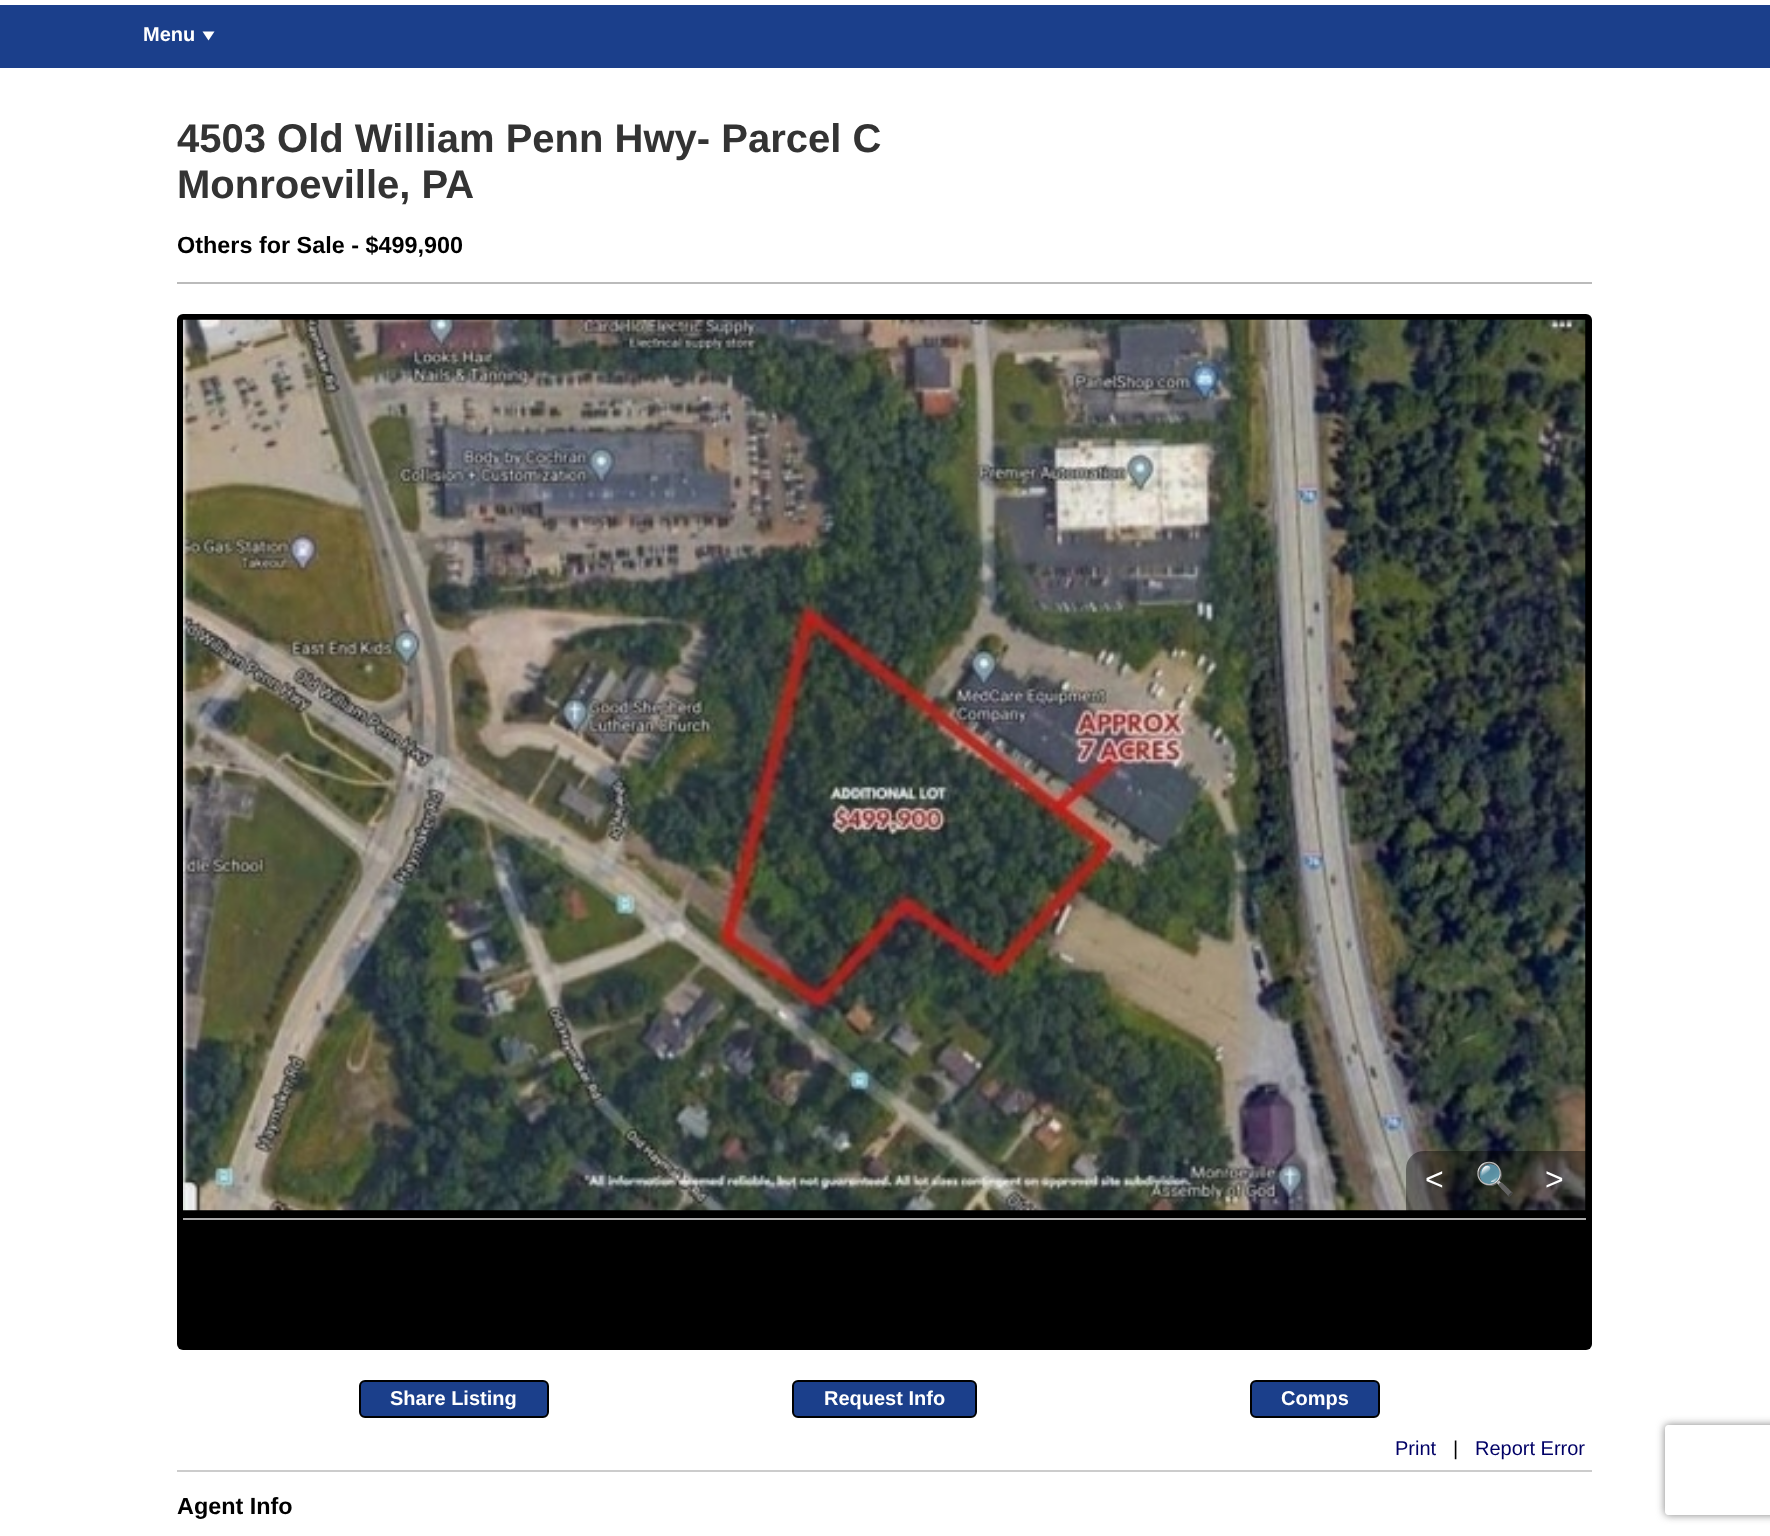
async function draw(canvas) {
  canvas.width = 1770;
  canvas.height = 1536;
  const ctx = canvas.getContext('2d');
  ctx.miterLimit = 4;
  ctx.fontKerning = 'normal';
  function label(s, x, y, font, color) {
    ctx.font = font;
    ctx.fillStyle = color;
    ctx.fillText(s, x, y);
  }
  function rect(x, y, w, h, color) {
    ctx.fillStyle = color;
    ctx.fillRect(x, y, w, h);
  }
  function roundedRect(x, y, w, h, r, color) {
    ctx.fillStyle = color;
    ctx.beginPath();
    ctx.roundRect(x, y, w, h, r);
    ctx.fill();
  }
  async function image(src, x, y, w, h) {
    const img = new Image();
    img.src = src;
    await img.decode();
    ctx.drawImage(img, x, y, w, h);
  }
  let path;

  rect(0, 0, 1770, 1536, '#fff');
  rect(0, 5, 1770, 63, '#1b3f8b');
  label('Menu', 143, 41, 'bold 20px Liberation Sans', '#fff');
  path = new Path2D('M202.5 31.5H214.5L208.5 40.5Z');
  ctx.fill(path);
  label('4503 Old William Penn Hwy- Parcel C', 177, 152, 'bold 40px Liberation Sans', '#333');
  label('Monroeville, PA', 177, 198, 'bold 40px Liberation Sans', '#333');
  label('Others for Sale - $499,900', 177, 253, 'bold 23.4px Liberation Sans', '#000');
  rect(177, 282, 1415, 2, '#bbb');
  rect(177, 1470, 1415, 2, '#ccc');
  roundedRect(177, 314, 1415, 1036, 6, '#000');
  await image('assets/img1.png', 183, 319, 1403, 892);
  ctx.fillStyle = '#00000066';
  ctx.beginPath();
  ctx.roundRect(1406, 1151, 180, 60, [18, 0, 0, 0]);
  ctx.fill();
  label('<', 1425, 1190, '32px Liberation Sans', '#fff');
  label('🔍', 1475, 1190, '32px Noto Color Emoji', '#fff');
  label('>', 1545, 1190, '32px Liberation Sans', '#fff');
  rect(183, 1218, 1403, 2, '#aaa');
  ctx.fillStyle = '#1b3f8b';
  ctx.beginPath();
  ctx.roundRect(360, 1381, 188, 36, 5);
  ctx.fill();
  ctx.strokeStyle = '#000';
  ctx.lineWidth = 2;
  ctx.stroke();
  label('Share Listing', 390, 1405, 'bold 20px Liberation Sans', '#fff');
  ctx.fillStyle = '#1b3f8b';
  ctx.beginPath();
  ctx.roundRect(793, 1381, 183, 36, 5);
  ctx.fill();
  ctx.stroke();
  label('Request Info', 824, 1405, 'bold 20px Liberation Sans', '#fff');
  ctx.fillStyle = '#1b3f8b';
  ctx.beginPath();
  ctx.roundRect(1251, 1381, 128, 36, 5);
  ctx.fill();
  ctx.stroke();
  label('Comps', 1281, 1405, 'bold 20px Liberation Sans', '#fff');
  label('Print', 1395, 1455, '20px Liberation Sans', '#006');
  label('|', 1453, 1455, '20px Liberation Sans', '#000');
  label('Report Error', 1475, 1455, '20px Liberation Sans', '#006');
  label('Agent Info', 177, 1514, 'bold 23.4px Liberation Sans', '#000');
  ctx.save();
  path = new Path2D('M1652 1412H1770V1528H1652ZM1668 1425H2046C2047.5 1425 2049 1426.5 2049 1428V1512C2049 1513.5 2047.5 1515 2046 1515H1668C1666.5 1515 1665 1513.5 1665 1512V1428C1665 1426.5 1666.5 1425 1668 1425Z');
  ctx.clip(path, 'evenodd');
  ctx.fillStyle = '#808080';
  ctx.filter = 'blur(4px)';
  ctx.beginPath();
  ctx.roundRect(1665, 1425, 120, 90, 3);
  ctx.fill();
  ctx.filter = 'none';
  ctx.restore();
}

draw(document.querySelector('canvas'));
